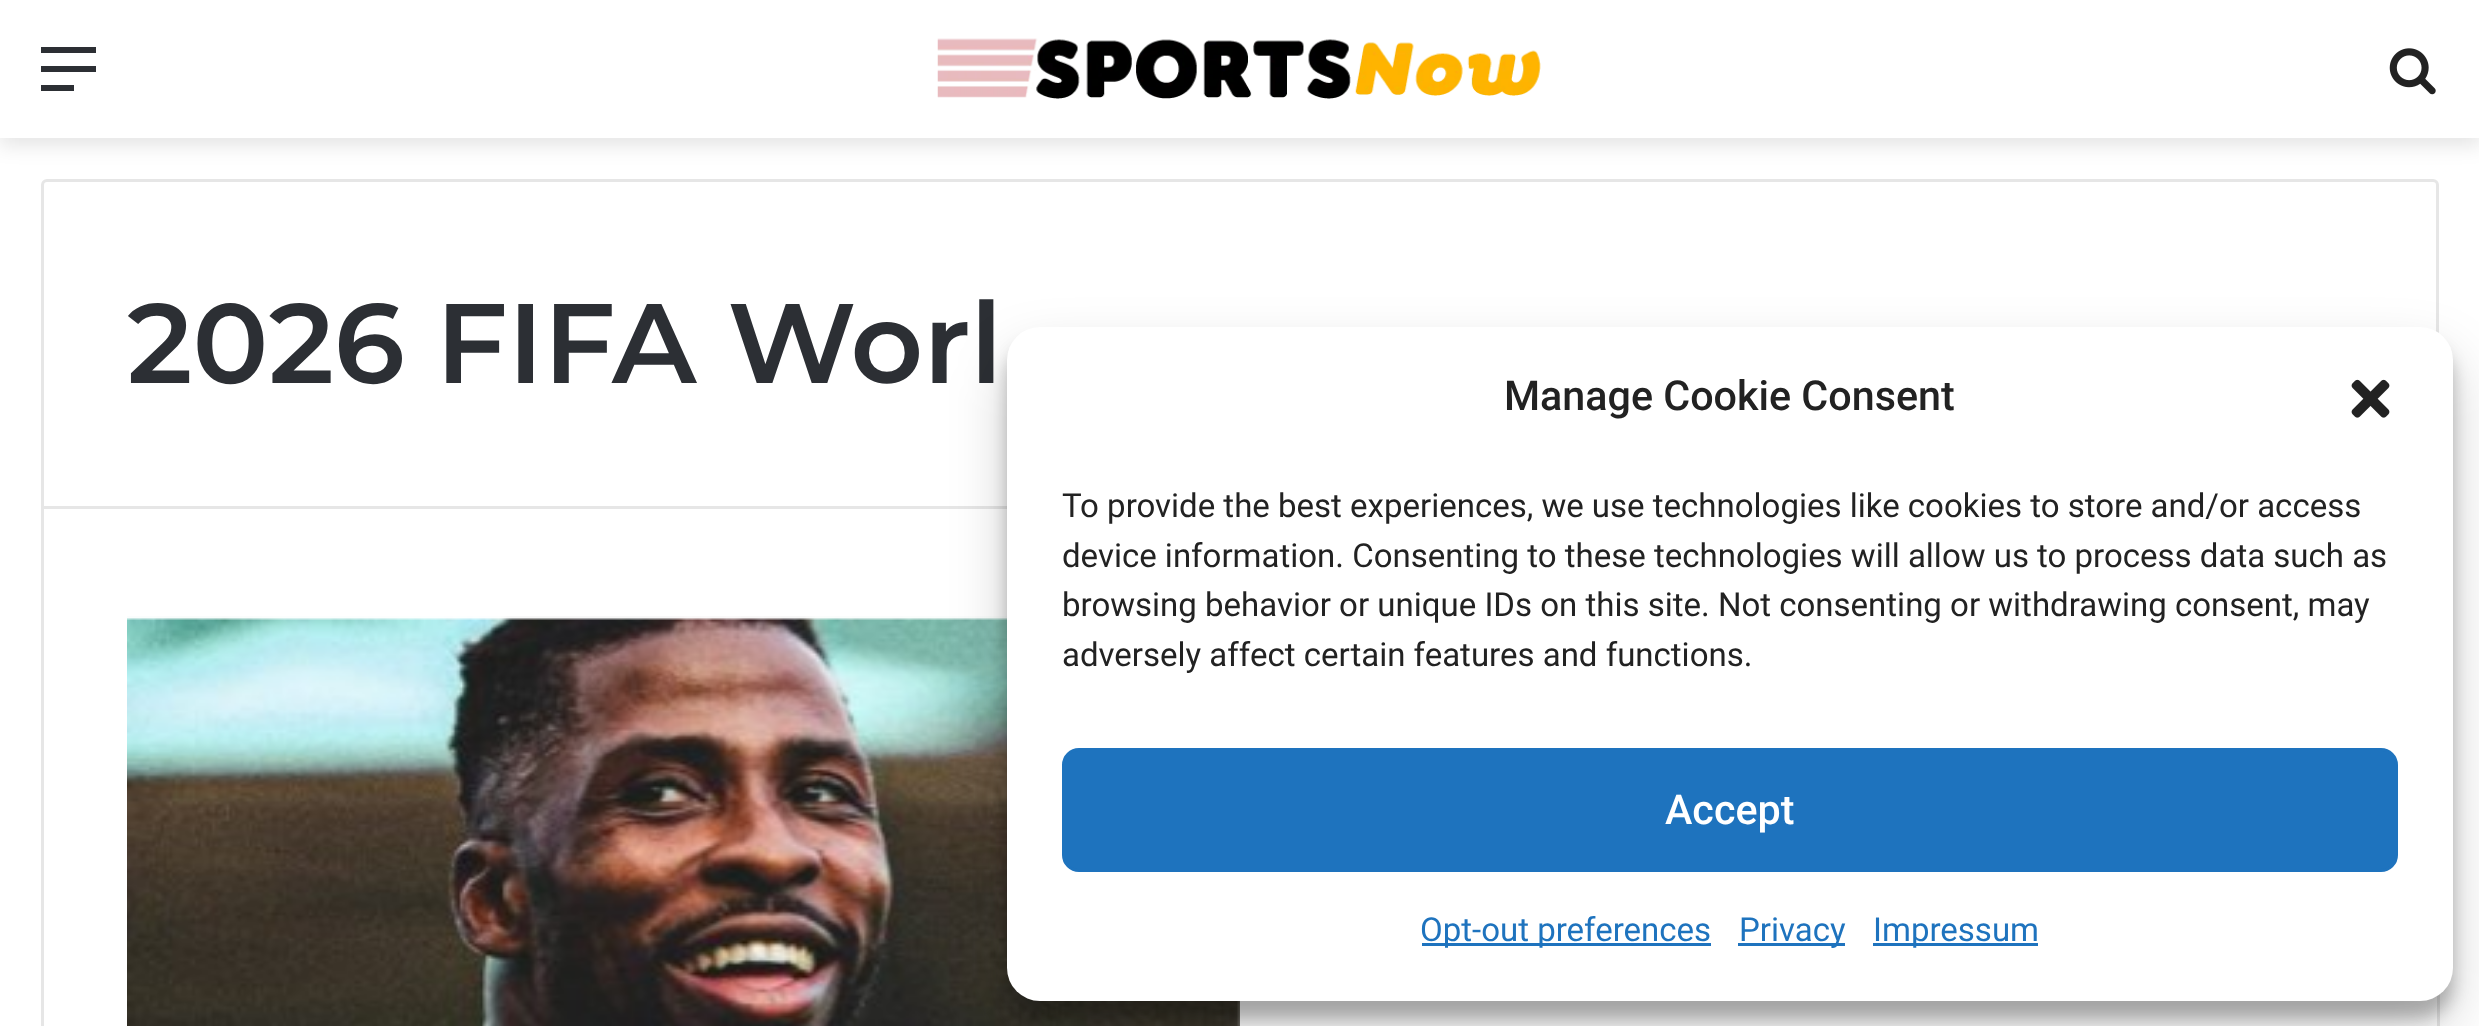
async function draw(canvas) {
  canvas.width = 2479;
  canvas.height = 1026;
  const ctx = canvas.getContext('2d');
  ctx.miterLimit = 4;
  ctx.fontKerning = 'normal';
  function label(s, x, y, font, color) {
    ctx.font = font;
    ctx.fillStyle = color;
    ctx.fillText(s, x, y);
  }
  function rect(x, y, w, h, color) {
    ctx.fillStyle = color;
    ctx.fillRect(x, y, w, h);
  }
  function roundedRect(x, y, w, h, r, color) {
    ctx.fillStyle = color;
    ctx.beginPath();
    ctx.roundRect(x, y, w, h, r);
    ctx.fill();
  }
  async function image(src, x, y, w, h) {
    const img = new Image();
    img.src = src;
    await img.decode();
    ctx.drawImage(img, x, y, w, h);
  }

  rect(0, 0, 2479, 1026, '#fff');
  ctx.fillStyle = '#0000001a';
  ctx.filter = 'blur(9.5px)';
  ctx.beginPath();
  ctx.rect(0, 8, 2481, 138);
  ctx.fill();
  ctx.filter = 'none';
  rect(0, 0, 2479, 138, '#fff');
  rect(41, 66, 55, 6, '#2c2f34');
  rect(41, 47, 55, 6, '#2c2f34');
  rect(41, 85, 33, 6, '#2c2f34');
  await image('assets/img1.png', 937, 38, 604, 61);
  await image('assets/img2.png', 2389, 48, 47, 47);
  ctx.beginPath();
  ctx.roundRect(42.5, 180.5, 2395, 327, [4.5, 4.5, 0, 0]);
  ctx.strokeStyle = '#e6e6e6';
  ctx.lineWidth = 3;
  ctx.stroke();
  label('2026 FIFA Worl', 127, 383, '600 112.75px Montserrat', '#2c2f34');
  rect(2437, 994, 3, 32, '#e6e6e6');
  rect(41, 509, 3, 517, '#e6e6e6');
  await image('assets/img3.png', 127, 616, 1113, 410);
  ctx.fillStyle = '#0000003b';
  ctx.filter = 'blur(8px)';
  ctx.beginPath();
  ctx.roundRect(1007, 344, 1446, 674, 33);
  ctx.fill();
  ctx.filter = 'none';
  ctx.fillStyle = '#00000030';
  ctx.filter = 'blur(27.5px)';
  ctx.beginPath();
  ctx.roundRect(1007, 355, 1446, 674, 33);
  ctx.fill();
  ctx.filter = 'none';
  roundedRect(1007, 327, 1446, 674, 33, '#fff');
  label('Manage Cookie Consent', 1504, 410, '500 41.25px Roboto', '#222');
  await image('assets/img4.png', 2351, 379, 39, 39);
  label('To provide the best experiences, we use technologies like cookies to store and/or access', 1062, 517, '33px Roboto', '#222');
  label('device information. Consenting to these technologies will allow us to process data such as', 1062, 567, '33px Roboto', '#222');
  label('browsing behavior or unique IDs on this site. Not consenting or withdrawing consent, may', 1062, 616, '33px Roboto', '#222');
  label('adversely affect certain features and functions.', 1062, 666, '33px Roboto', '#222');
  ctx.fillStyle = '#1e73be';
  ctx.beginPath();
  ctx.roundRect(1063.5, 749.5, 1333, 121, 15.5);
  ctx.fill();
  ctx.strokeStyle = '#1e73be';
  ctx.stroke();
  label('Accept', 1665, 824, '500 41.25px Roboto', '#fff');
  rect(1422, 943, 289, 3, '#1e73be');
  label('Opt-out preferences', 1420, 941, '33px Roboto', '#1e73be');
  rect(1738, 943, 107, 3, '#1e73be');
  label('Privacy', 1739, 941, '33px Roboto', '#1e73be');
  rect(1873, 943, 165, 3, '#1e73be');
  label('Impressum', 1873, 941, '33px Roboto', '#1e73be');
}

draw(document.querySelector('canvas'));
